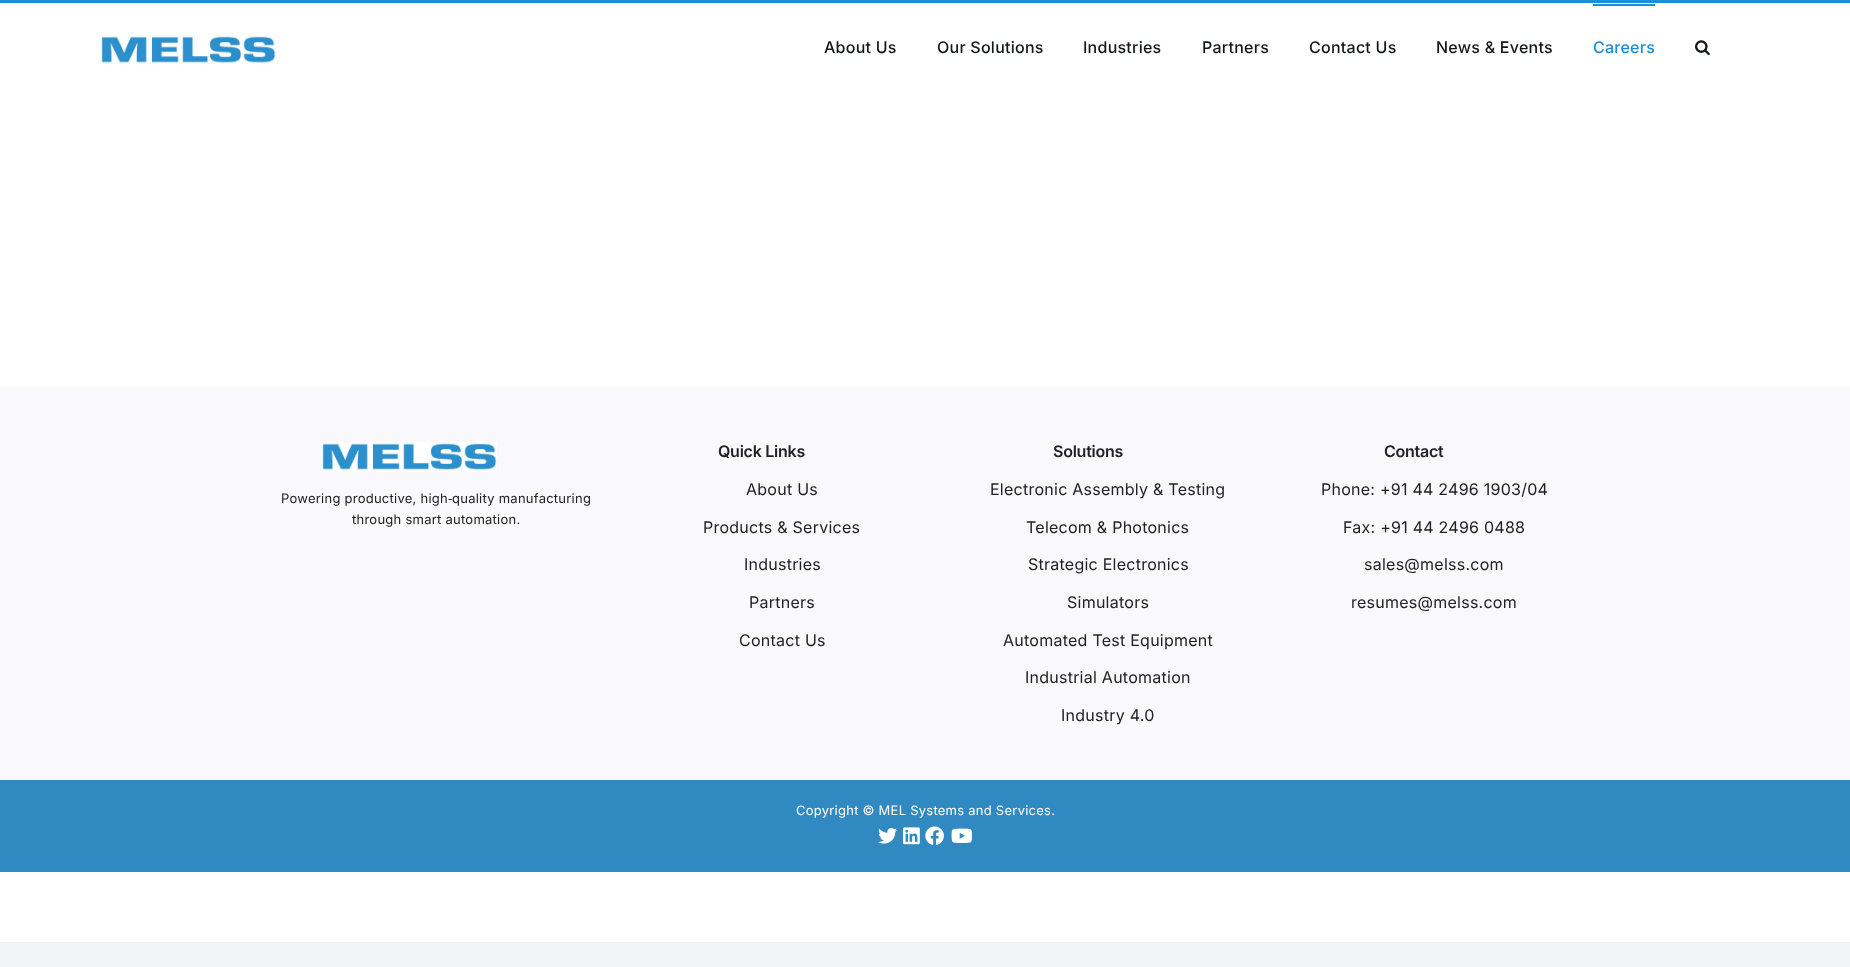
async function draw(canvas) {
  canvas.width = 1850;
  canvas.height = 967;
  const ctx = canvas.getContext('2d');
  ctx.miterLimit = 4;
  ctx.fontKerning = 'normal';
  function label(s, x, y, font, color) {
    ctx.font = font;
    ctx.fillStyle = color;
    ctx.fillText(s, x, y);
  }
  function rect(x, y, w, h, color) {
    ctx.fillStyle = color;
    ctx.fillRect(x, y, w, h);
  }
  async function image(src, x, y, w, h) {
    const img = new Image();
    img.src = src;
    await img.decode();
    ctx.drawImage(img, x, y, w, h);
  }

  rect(0, 0, 1850, 967, '#f2f3f5');
  rect(0, 3, 1850, 939, '#fff');
  rect(0, 0, 1850, 3, '#198fd9');
  await image('assets/img1.png', 100, 35, 176, 29);
  ctx.letterSpacing = '0.25px';
  label('About Us', 824, 53, '500 16px Inter', '#141617');
  label('Our Solutions', 937, 53, '500 16px Inter', '#141617');
  label('Industries', 1083, 53, '500 16px Inter', '#141617');
  label('Partners', 1202, 53, '500 16px Inter', '#141617');
  label('Contact Us', 1309, 53, '500 16px Inter', '#141617');
  label('News & Events', 1436, 53, '500 16px Inter', '#141617');
  rect(1593, 4, 62, 2, '#198fd9');
  label('Careers', 1593, 53, '500 16px Inter', '#198fd9');
  await image('assets/img2.png', 1695, 40, 15, 16);
  rect(0, 386, 1850, 394, '#f9f9fb');
  await image('assets/img3.png', 321, 442, 176, 30);
  label('Powering productive, high', 281, 503, '13px Inter', '#222');
  label('‑', 448, 503, '13px Noto Sans', '#222');
  label('quality manufacturing', 452, 503, '13px Inter', '#222');
  label('through smart automation.', 352, 524, '13px Inter', '#222');
  ctx.letterSpacing = '-0.25px';
  label('Quick Links', 718, 457, '600 16px Inter', '#222');
  ctx.letterSpacing = '0.25px';
  label('About Us', 746, 495, '16px Inter', '#222');
  label('Products & Services', 703, 533, '16px Inter', '#222');
  label('Industries', 744, 570, '16px Inter', '#222');
  label('Partners', 749, 608, '16px Inter', '#222');
  label('Contact Us', 739, 646, '16px Inter', '#222');
  ctx.letterSpacing = '-0.25px';
  label('Solutions', 1053, 457, '600 16px Inter', '#222');
  ctx.letterSpacing = '0.25px';
  label('Electronic Assembly & Testing', 990, 495, '16px Inter', '#222');
  label('Telecom & Photonics', 1026, 533, '16px Inter', '#222');
  label('Strategic Electronics', 1028, 570, '16px Inter', '#222');
  label('Simulators', 1067, 608, '16px Inter', '#222');
  label('Automated Test Equipment', 1003, 646, '16px Inter', '#222');
  label('Industrial Automation', 1025, 683, '16px Inter', '#222');
  label('Industry 4.0', 1061, 721, '16px Inter', '#222');
  ctx.letterSpacing = '-0.25px';
  label('Contact', 1384, 457, '600 16px Inter', '#222');
  ctx.letterSpacing = '0.25px';
  label('Phone: +91 44 2496 1903/04', 1321, 495, '16px Inter', '#222');
  label('Fax: +91 44 2496 0488', 1343, 533, '16px Inter', '#222');
  label('sales@melss.com', 1364, 570, '16px Inter', '#222');
  label('resumes@melss.com', 1351, 608, '16px Inter', '#222');
  rect(0, 780, 1850, 92, '#3089c0');
  label('Copyright © MEL Systems and Services.', 796, 815, '13px Inter', '#fff');
  await image('assets/img4.png', 878, 828, 19, 16);
  await image('assets/img5.png', 903, 827, 17, 18);
  await image('assets/img6.png', 925, 826, 19, 19);
  await image('assets/img7.png', 951, 828, 22, 15);
}

draw(document.querySelector('canvas'));
